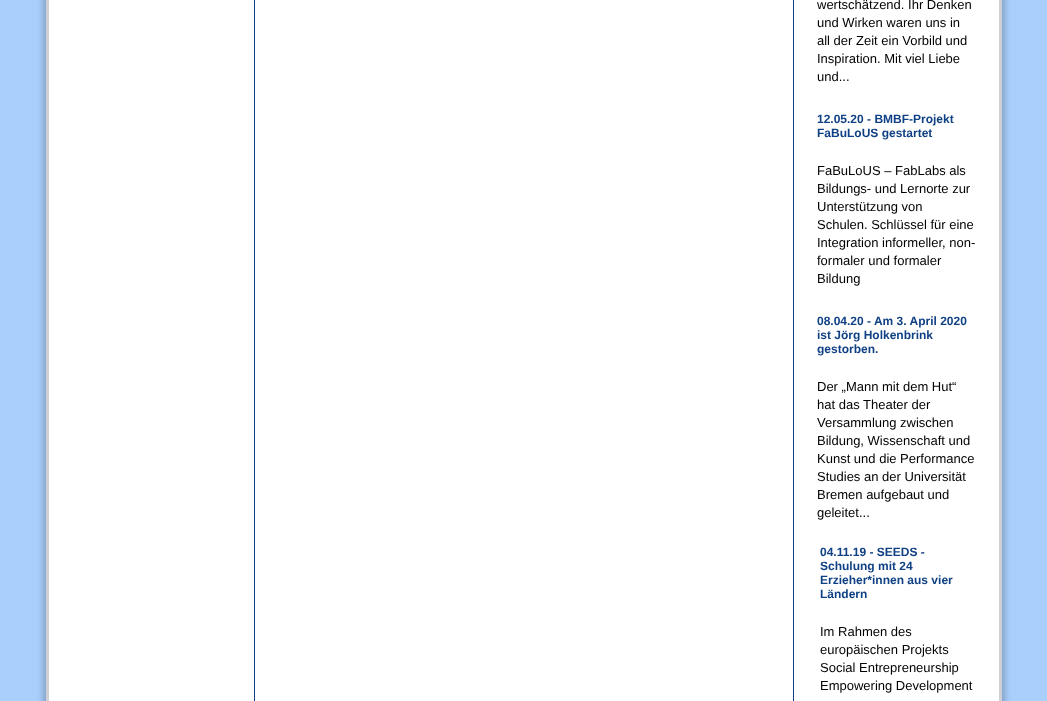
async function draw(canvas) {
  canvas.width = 1047;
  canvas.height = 701;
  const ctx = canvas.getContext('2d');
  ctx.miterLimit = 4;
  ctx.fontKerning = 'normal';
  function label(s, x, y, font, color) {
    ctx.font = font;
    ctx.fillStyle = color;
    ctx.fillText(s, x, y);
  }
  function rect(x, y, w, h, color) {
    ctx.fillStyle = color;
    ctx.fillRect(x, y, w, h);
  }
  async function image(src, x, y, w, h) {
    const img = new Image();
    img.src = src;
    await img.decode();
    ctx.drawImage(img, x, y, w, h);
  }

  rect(0, 0, 1047, 701, '#a9cffd');
  await image('assets/img1.png', 48, 0, 952, 701);
  await image('assets/img2.png', 34, 0, 14, 701);
  label('wertschätzend. Ihr Denken', 817, 9, '13px Liberation Sans', '#000');
  label('und Wirken waren uns in', 817, 27, '13px Liberation Sans', '#000');
  label('all der Zeit ein Vorbild und', 817, 45, '13px Liberation Sans', '#000');
  label('Inspiration. Mit viel Liebe', 817, 63, '13px Liberation Sans', '#000');
  label('und...', 817, 81, '13px Liberation Sans', '#000');
  label('12.05.20 - BMBF-Projekt', 817, 123, 'bold 12px Liberation Sans', '#104184');
  label('FaBuLoUS gestartet', 817, 137, 'bold 12px Liberation Sans', '#104184');
  label('FaBuLoUS – FabLabs als', 817, 175, '13px Liberation Sans', '#000');
  label('Bildungs- und Lernorte zur', 817, 193, '13px Liberation Sans', '#000');
  label('Unterstützung von', 817, 211, '13px Liberation Sans', '#000');
  label('Schulen. Schlüssel für eine', 817, 229, '13px Liberation Sans', '#000');
  label('Integration informeller, non-', 817, 247, '13px Liberation Sans', '#000');
  label('formaler und formaler', 817, 265, '13px Liberation Sans', '#000');
  label('Bildung', 817, 283, '13px Liberation Sans', '#000');
  label('08.04.20 - Am 3. April 2020', 817, 325, 'bold 12px Liberation Sans', '#104184');
  label('ist Jörg Holkenbrink', 817, 339, 'bold 12px Liberation Sans', '#104184');
  label('gestorben.', 817, 353, 'bold 12px Liberation Sans', '#104184');
  label('Der „Mann mit dem Hut“', 817, 391, '13px Liberation Sans', '#000');
  label('hat das Theater der', 817, 409, '13px Liberation Sans', '#000');
  label('Versammlung zwischen', 817, 427, '13px Liberation Sans', '#000');
  label('Bildung, Wissenschaft und', 817, 445, '13px Liberation Sans', '#000');
  label('Kunst und die Performance', 817, 463, '13px Liberation Sans', '#000');
  label('Studies an der Universität', 817, 481, '13px Liberation Sans', '#000');
  label('Bremen aufgebaut und', 817, 499, '13px Liberation Sans', '#000');
  label('geleitet...', 817, 517, '13px Liberation Sans', '#000');
  label('04.11.19 - SEEDS -', 820, 556, 'bold 12px Liberation Sans', '#104184');
  label('Schulung mit 24', 820, 570, 'bold 12px Liberation Sans', '#104184');
  label('Erzieher*innen aus vier', 820, 584, 'bold 12px Liberation Sans', '#104184');
  label('Ländern', 820, 598, 'bold 12px Liberation Sans', '#104184');
  label('Im Rahmen des', 820, 636, '13px Liberation Sans', '#000');
  label('europäischen Projekts', 820, 654, '13px Liberation Sans', '#000');
  label('Social Entrepreneurship', 820, 672, '13px Liberation Sans', '#000');
  label('Empowering Development', 820, 690, '13px Liberation Sans', '#000');
  await image('assets/img3.png', 1000, 0, 14, 701);
}

draw(document.querySelector('canvas'));
